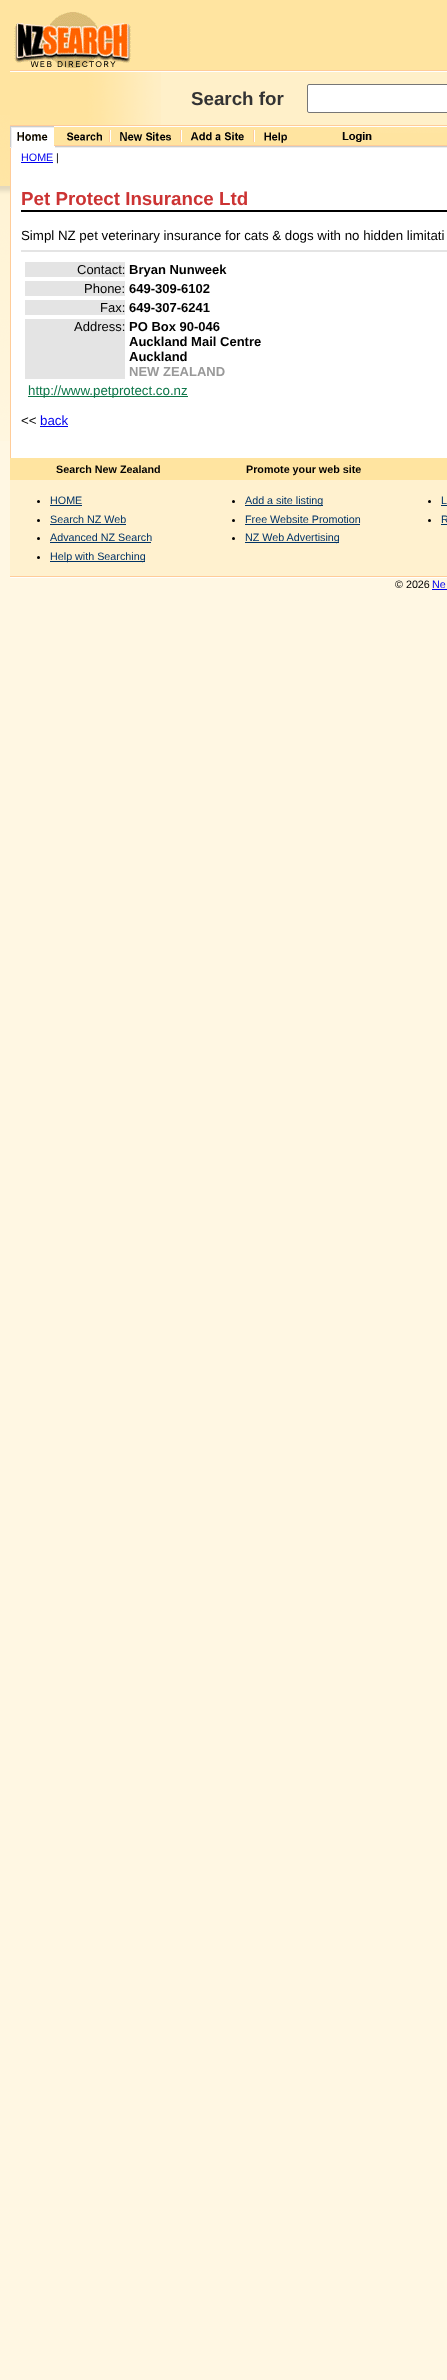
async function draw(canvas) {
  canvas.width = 447;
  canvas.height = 2380;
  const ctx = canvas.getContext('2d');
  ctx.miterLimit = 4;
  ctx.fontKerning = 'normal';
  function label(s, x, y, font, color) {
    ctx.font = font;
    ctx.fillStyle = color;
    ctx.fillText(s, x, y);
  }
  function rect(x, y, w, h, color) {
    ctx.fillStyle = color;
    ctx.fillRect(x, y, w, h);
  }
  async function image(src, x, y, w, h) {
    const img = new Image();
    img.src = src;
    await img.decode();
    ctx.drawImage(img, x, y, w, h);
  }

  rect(0, 0, 447, 2380, '#fff7e3');
  await image('assets/img1.png', 0, 0, 447, 441);
  await image('assets/img2.png', 14, 12, 117, 56);
  rect(10, 70, 437, 1, '#fc9');
  rect(10, 71, 437, 1, '#fff');
  rect(161, 72, 286, 53, '#fff0c9');
  await image('assets/img3.png', 10, 72, 151, 53);
  label('Search for', 191, 105, 'bold 18.75px Liberation Sans', '#333');
  ctx.fillStyle = '#fff';
  ctx.beginPath();
  ctx.roundRect(307.5, 84.5, 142, 28, 1.5);
  ctx.fill();
  ctx.strokeStyle = '#767676';
  ctx.stroke();
  rect(377, 133, 70, 12, '#ffe4a0');
  rect(10, 125, 437, 1, '#fc9');
  await image('assets/img4.png', 10, 126, 367, 22);
  rect(377, 126, 70, 1, '#fff');
  rect(377, 145, 70, 1, '#fc9');
  rect(377, 146, 70, 1, '#ccc');
  rect(377, 147, 70, 1, '#eee');
  rect(11, 148, 436, 310, '#fff');
  rect(10, 148, 1, 310, '#fc9');
  label('HOME', 21, 161, '10.75px Liberation Sans', '#00e');
  rect(21, 162, 32, 1, '#00e');
  label('|', 56, 161, '10.75px Liberation Sans', '#000');
  rect(21, 210, 426, 2, '#000');
  label('Pet Protect Insurance Ltd', 21, 205, 'bold 18.75px Liberation Sans', '#c33');
  label('Simpl NZ pet veterinary insurance for cats & dogs with no hidden limitati', 21, 240, '13.3px Liberation Sans', '#000');
  rect(21, 250, 426, 2, '#e4e4e4');
  rect(25, 262, 100, 15, '#e4e4e4');
  label('Contact:', 77, 274, '13px Liberation Sans', '#000');
  label('Bryan Nunweek', 129, 274, 'bold 13px Liberation Sans', '#000');
  rect(25, 281, 100, 15, '#e4e4e4');
  label('Phone:', 84, 293, '13px Liberation Sans', '#000');
  label('649-309-6102', 129, 293, 'bold 13px Liberation Sans', '#000');
  rect(25, 300, 100, 15, '#e4e4e4');
  label('Fax:', 100, 312, '13px Liberation Sans', '#000');
  label('649-307-6241', 129, 312, 'bold 13px Liberation Sans', '#000');
  rect(25, 319, 100, 60, '#e4e4e4');
  label('Address:', 74, 331, '13px Liberation Sans', '#000');
  label('PO Box 90-046', 129, 331, 'bold 13px Liberation Sans', '#000');
  label('Auckland Mail Centre', 129, 346, 'bold 13px Liberation Sans', '#000');
  label('Auckland', 129, 361, 'bold 13px Liberation Sans', '#000');
  label('NEW ZEALAND', 129, 376, 'bold 13px Liberation Sans', '#999');
  rect(28, 396, 160, 1, '#0e774a');
  label('http://www.petprotect.co.nz', 28, 395, '13.3px Liberation Sans', '#0e774a');
  label('<<', 21, 425, '13.3px Liberation Sans', '#000');
  label('back', 40, 425, '13.3px Liberation Sans', '#00e');
  rect(40, 426, 28, 1, '#00e');
  rect(10, 480, 437, 96, '#fff1cf');
  rect(10, 458, 437, 22, '#ffe4a0');
  label('Search New Zealand', 56, 473, 'bold 10.75px Liberation Sans', '#000');
  ctx.beginPath();
  ctx.arc(38.5, 501.5, 1.5, 0, 2 * Math.PI);
  ctx.fill();
  label('HOME', 50, 504, '10.75px Liberation Sans', '#036');
  rect(50, 505, 32, 1, '#036');
  ctx.fillStyle = '#000';
  ctx.beginPath();
  ctx.arc(38.5, 520.5, 1.5, 0, 2 * Math.PI);
  ctx.fill();
  label('Search NZ Web', 50, 523, '10.75px Liberation Sans', '#036');
  rect(50, 524, 76, 1, '#036');
  ctx.fillStyle = '#000';
  ctx.beginPath();
  ctx.arc(38.5, 538.5, 1.5, 0, 2 * Math.PI);
  ctx.fill();
  label('Advanced NZ Search', 50, 541, '10.75px Liberation Sans', '#036');
  rect(50, 542, 101, 1, '#036');
  ctx.fillStyle = '#000';
  ctx.beginPath();
  ctx.arc(38.5, 557.5, 1.5, 0, 2 * Math.PI);
  ctx.fill();
  rect(50, 561, 95, 1, '#036');
  label('Help with Searching', 50, 560, '10.75px Liberation Sans', '#036');
  label('Promote your web site', 246, 473, 'bold 10.75px Liberation Sans', '#000');
  ctx.beginPath();
  ctx.arc(233.5, 501.5, 1.5, 0, 2 * Math.PI);
  ctx.fill();
  rect(245, 505, 78, 1, '#036');
  label('Add a site listing', 245, 504, '10.75px Liberation Sans', '#036');
  ctx.fillStyle = '#000';
  ctx.beginPath();
  ctx.arc(233.5, 520.5, 1.5, 0, 2 * Math.PI);
  ctx.fill();
  label('Free Website Promotion', 245, 523, '10.75px Liberation Sans', '#036');
  rect(245, 524, 115, 1, '#036');
  ctx.fillStyle = '#000';
  ctx.beginPath();
  ctx.arc(233.5, 538.5, 1.5, 0, 2 * Math.PI);
  ctx.fill();
  rect(245, 542, 94, 1, '#036');
  label('NZ Web Advertising', 245, 541, '10.75px Liberation Sans', '#036');
  ctx.fillStyle = '#000';
  ctx.beginPath();
  ctx.arc(429.5, 501.5, 1.5, 0, 2 * Math.PI);
  ctx.fill();
  label('L', 441, 504, '10.75px Liberation Sans', '#036');
  rect(441, 505, 6, 1, '#036');
  ctx.fillStyle = '#000';
  ctx.beginPath();
  ctx.arc(429.5, 520.5, 1.5, 0, 2 * Math.PI);
  ctx.fill();
  label('R', 441, 523, '10.75px Liberation Sans', '#036');
  rect(441, 524, 6, 1, '#036');
  rect(10, 576, 437, 1, '#fc9');
  rect(10, 577, 437, 1, '#fff');
  label('© 2026', 395, 588, '10.75px Liberation Sans', '#000');
  label('Ne', 432, 588, '10.75px Liberation Sans', '#00e');
  rect(432, 589, 15, 1, '#00e');
}

draw(document.querySelector('canvas'));
